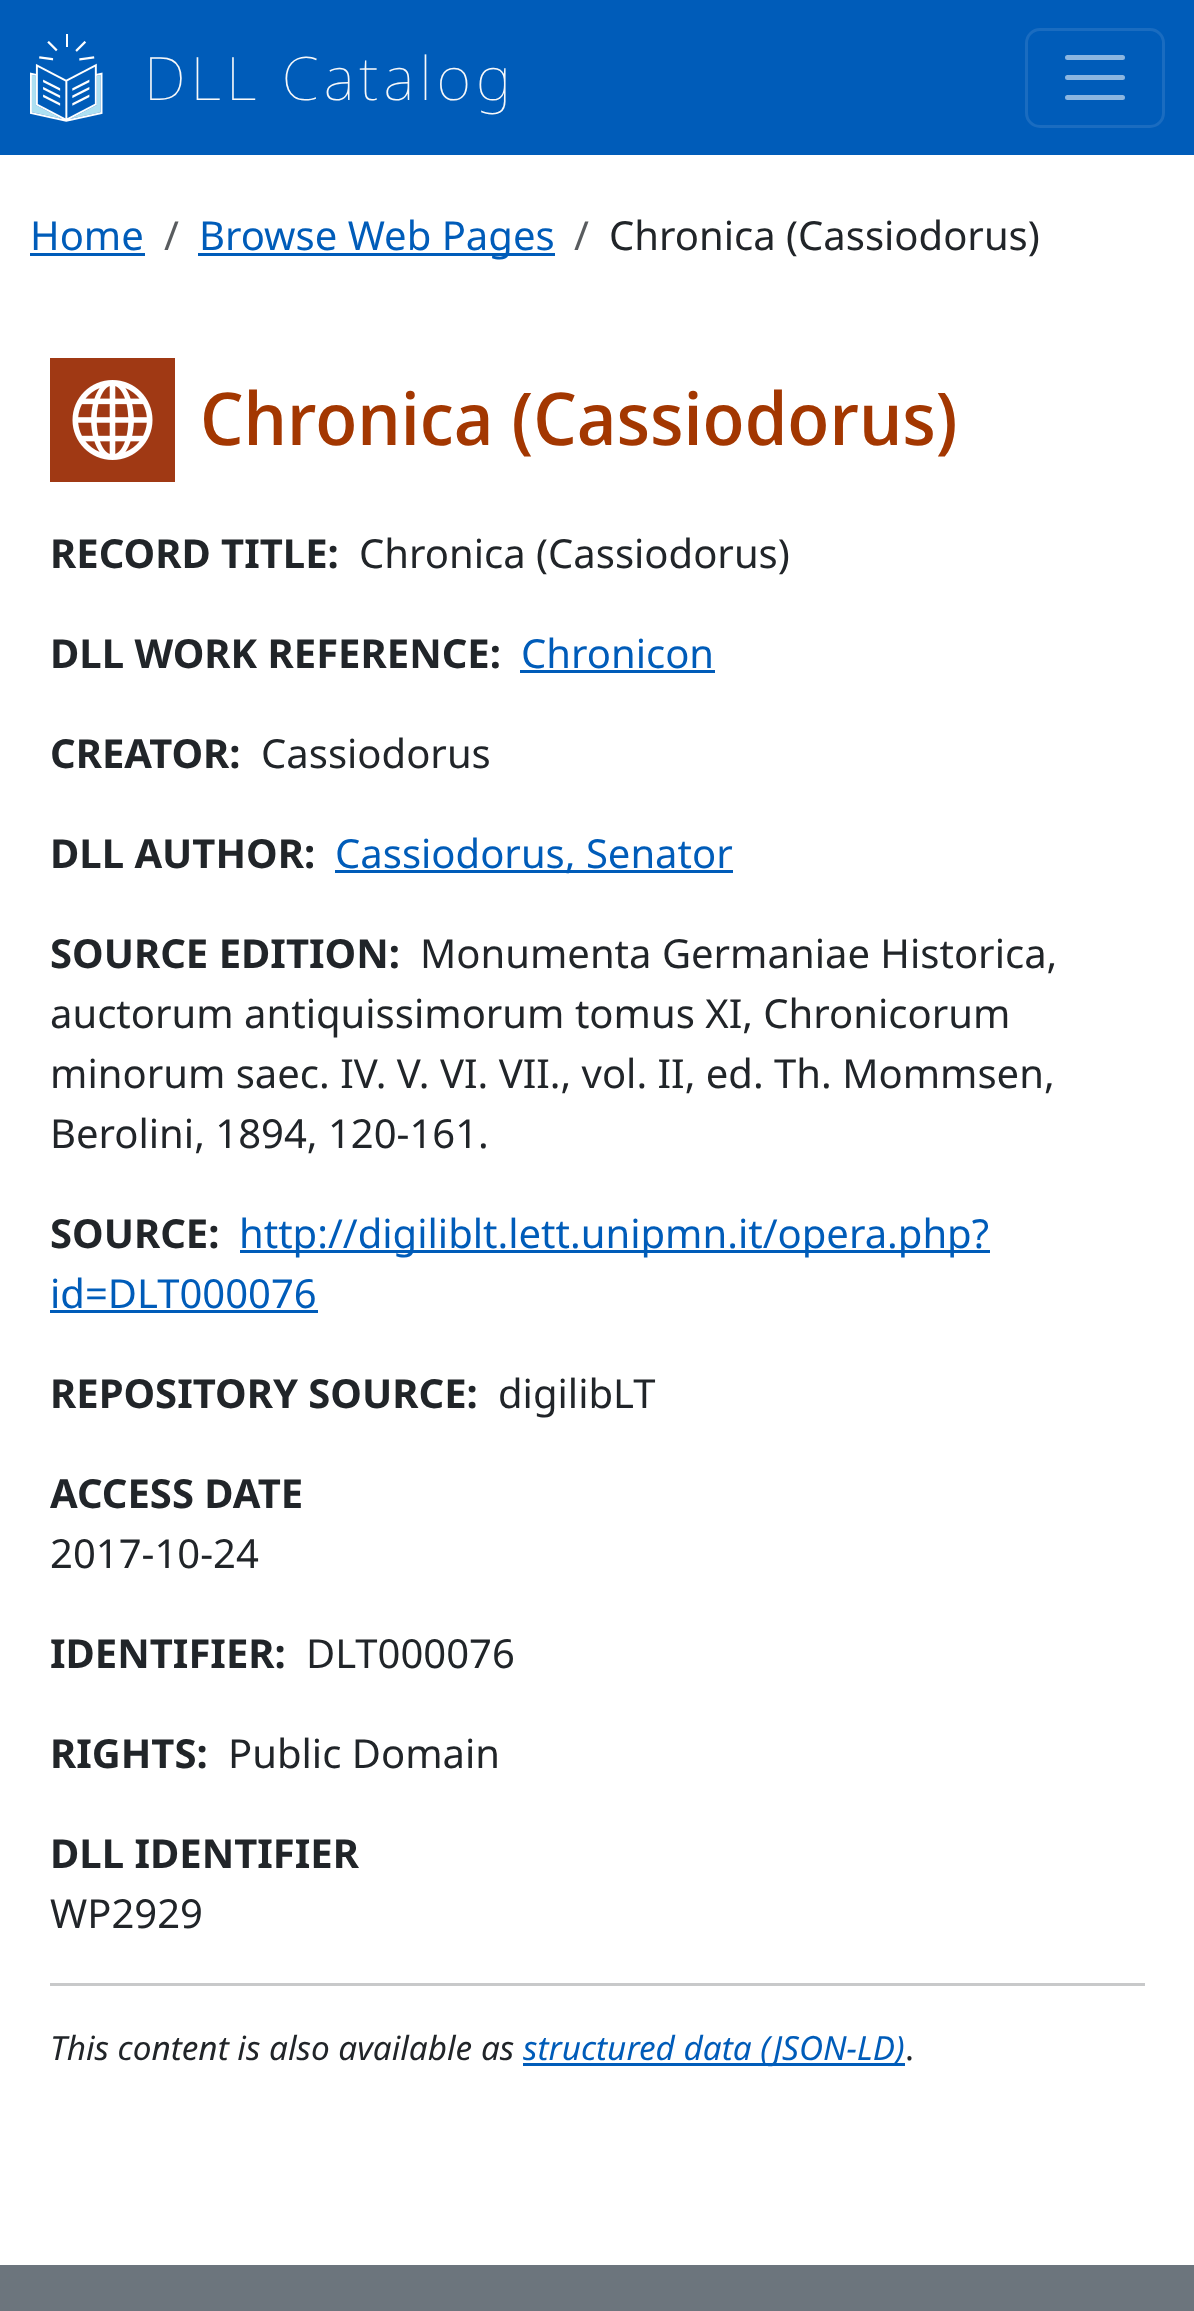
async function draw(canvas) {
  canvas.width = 1194;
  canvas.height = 2311;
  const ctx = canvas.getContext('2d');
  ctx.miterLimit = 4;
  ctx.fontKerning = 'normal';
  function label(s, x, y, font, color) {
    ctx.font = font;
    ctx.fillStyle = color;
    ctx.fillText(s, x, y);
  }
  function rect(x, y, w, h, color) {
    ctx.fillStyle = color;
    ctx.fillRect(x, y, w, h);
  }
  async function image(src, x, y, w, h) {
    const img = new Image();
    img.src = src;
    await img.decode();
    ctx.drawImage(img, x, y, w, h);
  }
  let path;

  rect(0, 0, 1194, 2311, '#fff');
  rect(0, 0, 1194, 155, '#005cb9');
  await image('assets/img1.png', 30, 34, 73, 88);
  ctx.letterSpacing = '5px';
  label('DLL Catalog', 144, 100, '100 60px Noto Sans', '#f8f9fa');
  ctx.beginPath();
  ctx.roundRect(1026.5, 29.5, 137, 97, 13.5);
  ctx.strokeStyle = '#1a6cc0';
  ctx.lineWidth = 3;
  ctx.stroke();
  path = new Path2D('M1067.5 57.5H1122.5M1067.5 77.5H1122.5M1067.5 97.5H1122.5');
  ctx.strokeStyle = '#8cb6e0';
  ctx.lineWidth = 5;
  ctx.lineCap = 'round';
  ctx.stroke(path);
  ctx.letterSpacing = '0px';
  label('Home', 30, 250, '40px Noto Sans', '#005cb9');
  rect(30, 253, 115, 3, '#005cb9');
  label('/', 164, 250, '40px Noto Sans', '#595c5f');
  rect(198, 253, 357, 3, '#005cb9');
  label('Browse Web Pages', 199, 250, '40px Noto Sans', '#005cb9');
  label('/', 574, 250, '40px Noto Sans', '#595c5f');
  label('Chronica (Cassiodorus)', 609, 250, '40px Noto Sans', '#212529');
  await image('assets/img2.png', 50, 358, 125, 124);
  label('Chronica (Cassiodorus)', 200, 445, '500 73px Noto Sans Display', '#a33701');
  label('RECORD TITLE:', 50, 568, 'bold 40px Noto Sans', '#212529');
  label('Chronica (Cassiodorus)', 359, 568, '40px Noto Sans', '#212529');
  label('DLL WORK REFERENCE:', 50, 668, 'bold 40px Noto Sans', '#212529');
  label('Chronicon', 521, 668, '40px Noto Sans', '#005cb9');
  rect(520, 670, 195, 3, '#005cb9');
  label('CREATOR:', 50, 768, 'bold 40px Noto Sans', '#212529');
  label('Cassiodorus', 261, 768, '40px Noto Sans', '#212529');
  label('DLL AUTHOR:', 50, 868, 'bold 40px Noto Sans', '#212529');
  rect(335, 870, 398, 3, '#005cb9');
  label('Cassiodorus, Senator', 335, 868, '40px Noto Sans', '#005cb9');
  label('Monumenta Germaniae Historica,', 420, 968, '40px Noto Sans', '#212529');
  label('auctorum antiquissimorum tomus XI, Chronicorum', 50, 1028, '40px Noto Sans', '#212529');
  label('minorum saec. IV. V. VI. VII., vol. II, ed. Th. Mommsen,', 50, 1088, '40px Noto Sans', '#212529');
  label('Berolini, 1894, 120-161.', 50, 1148, '40px Noto Sans', '#212529');
  label('SOURCE EDITION:', 50, 968, 'bold 40px Noto Sans', '#212529');
  rect(240, 1250, 750, 3, '#005cb9');
  label('http://digiliblt.lett.unipmn.it/opera.php?', 239, 1248, '40px Noto Sans', '#005cb9');
  label('id=DLT000076', 50, 1308, '40px Noto Sans', '#005cb9');
  rect(50, 1310, 268, 3, '#005cb9');
  label('SOURCE:', 50, 1248, 'bold 40px Noto Sans', '#212529');
  label('REPOSITORY SOURCE:', 50, 1408, 'bold 40px Noto Sans', '#212529');
  label('digilibLT', 498, 1408, '40px Noto Sans', '#212529');
  label('ACCESS DATE', 50, 1508, 'bold 40px Noto Sans', '#212529');
  label('2017-10-24', 50, 1568, '40px Noto Sans', '#212529');
  label('IDENTIFIER:', 50, 1668, 'bold 40px Noto Sans', '#212529');
  label('DLT000076', 306, 1668, '40px Noto Sans', '#212529');
  label('RIGHTS:', 50, 1768, 'bold 40px Noto Sans', '#212529');
  label('Public Domain', 228, 1768, '40px Noto Sans', '#212529');
  label('DLL IDENTIFIER', 50, 1868, 'bold 40px Noto Sans', '#212529');
  label('WP2929', 50, 1928, '40px Noto Sans', '#212529');
  rect(50, 1983, 1095, 3, '#c8c9ca');
  label('This content is also available as', 50, 2060, 'italic 33.3px Noto Sans', '#212529');
  rect(523, 2063, 382, 3, '#005cb9');
  label('structured data (JSON-LD)', 523, 2060, 'italic 33.3px Noto Sans', '#005cb9');
  label('.', 905, 2060, '33.3px Noto Sans', '#212529');
  rect(0, 2265, 1194, 46, '#6c757d');
}

draw(document.querySelector('canvas'));
